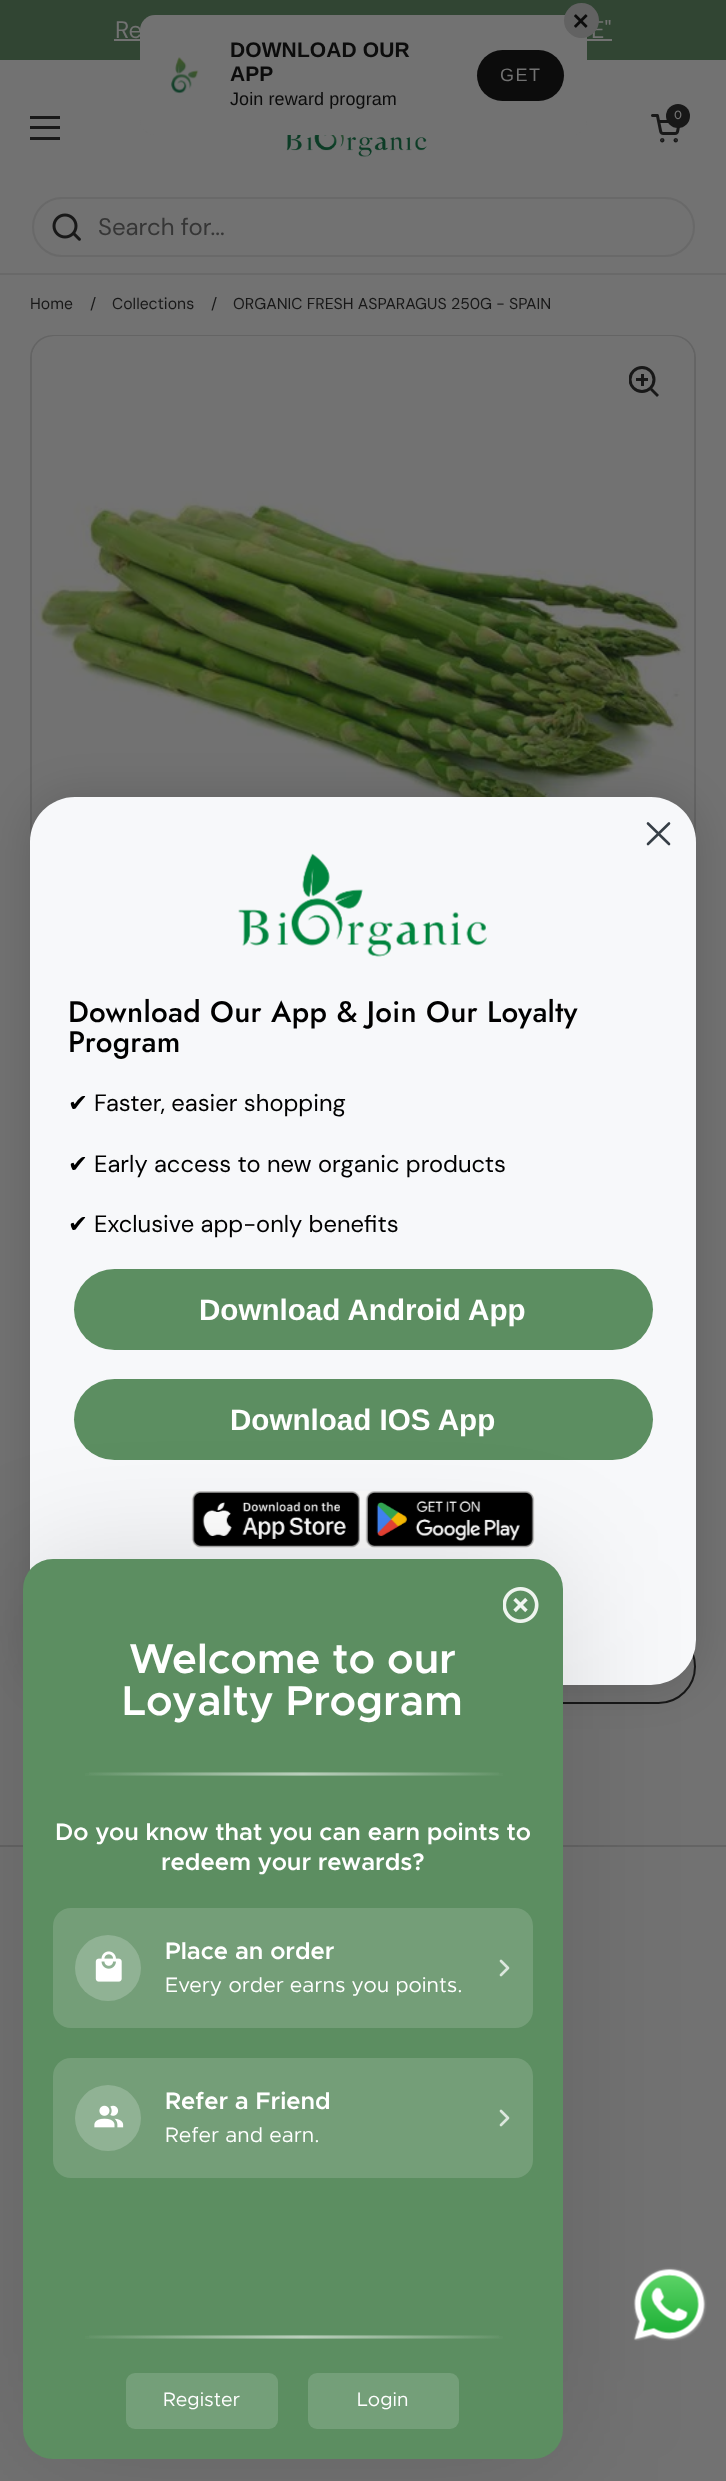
async function draw(canvas) {
  canvas.width = 726;
  canvas.height = 2481;
  const ctx = canvas.getContext('2d');
  ctx.miterLimit = 4;
  ctx.fontKerning = 'normal';
  function label(s, x, y, font, color) {
    ctx.font = font;
    ctx.fillStyle = color;
    ctx.fillText(s, x, y);
  }
  function rect(x, y, w, h, color) {
    ctx.fillStyle = color;
    ctx.fillRect(x, y, w, h);
  }
  function roundedRect(x, y, w, h, r, color) {
    ctx.fillStyle = color;
    ctx.beginPath();
    ctx.roundRect(x, y, w, h, r);
    ctx.fill();
  }
  async function image(src, x, y, w, h) {
    const img = new Image();
    img.src = src;
    await img.decode();
    ctx.drawImage(img, x, y, w, h);
  }
  let gradient, path;

  rect(0, 0, 726, 2481, '#727272');
  rect(0, 0, 726, 60, '#314533');
  label('Re', 115, 38, '24px DM Sans', '#727272');
  rect(114, 39, 498, 2, '#727272');
  label('E"', 591, 38, '24px DM Sans', '#727272');
  roundedRect(140, 15, 447, 120, 15, '#727272');
  ctx.fillStyle = '#626262';
  ctx.beginPath();
  ctx.arc(581.5, 20.5, 17.5, 0, 2 * Math.PI);
  ctx.fill();
  await image('assets/img1.png', 574, 14, 14, 14);
  await image('assets/img2.png', 171, 57, 28, 37);
  ctx.letterSpacing = '0.1px';
  label('DOWNLOAD OUR', 230, 57, 'bold 21px Liberation Sans', '#0c0c0c');
  label('APP', 230, 81, 'bold 21px Liberation Sans', '#0c0c0c');
  label('Join reward program', 230, 105, '18px Liberation Sans', '#0c0c0c');
  roundedRect(477, 50, 87, 51, 25.5, '#0c0c0c');
  ctx.letterSpacing = '1.5px';
  label('GET', 500, 81, '18px Liberation Sans', '#727272');
  await image('assets/img3.png', 651, 114, 29, 29);
  ctx.fillStyle = '#181818';
  ctx.beginPath();
  ctx.arc(678, 116, 12, 0, 2 * Math.PI);
  ctx.fill();
  ctx.letterSpacing = '0px';
  label('0', 674, 119, '500 12px DM Sans', '#727272');
  rect(30, 116, 30, 3, '#181818');
  rect(30, 126, 30, 3, '#181818');
  rect(30, 137, 30, 3, '#181818');
  await image('assets/img4.png', 286, 135, 141, 22);
  rect(0, 273, 726, 2, '#696969');
  ctx.beginPath();
  ctx.roundRect(33, 198, 661, 58, 29);
  ctx.strokeStyle = '#696969';
  ctx.lineWidth = 2;
  ctx.stroke();
  await image('assets/img5.png', 52, 213, 29, 28);
  label('Search for...', 98, 235, '24px DM Sans', '#363636');
  label('Home', 30, 309, '15.75px "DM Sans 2"', '#181818');
  label('/', 90, 309, '15.75px "DM Sans 2"', '#181818');
  label('Collections', 112, 309, '15.75px "DM Sans 2"', '#181818');
  label('/', 211, 309, '15.75px "DM Sans 2"', '#181818');
  label('ORGANIC FRESH ASPARAGUS 250G - SPAIN', 233, 309, '15.75px "DM Sans 2"', '#181818');
  ctx.beginPath();
  ctx.roundRect(31, 336, 664, 667, 22);
  ctx.strokeStyle = '#646464';
  ctx.stroke();
  await image('assets/img6.png', 31, 336, 664, 497);
  ctx.save();
  ctx.beginPath();
  ctx.rect(629, 366, 31, 32);
  ctx.clip();
  ctx.beginPath();
  ctx.arc(642, 379.5, 12, 0, 2 * Math.PI);
  ctx.strokeStyle = '#181818';
  ctx.lineWidth = 3;
  ctx.stroke();
  ctx.restore();
  rect(641, 374, 3, 12, '#181818');
  rect(636, 378, 12, 3, '#181818');
  path = new Path2D('M650 390L652 388L659 395L657 397Z');
  ctx.fill(path);
  ctx.beginPath();
  ctx.roundRect(31, 1630, 664, 73, 36.5);
  ctx.strokeStyle = '#181818';
  ctx.stroke();
  ctx.fillStyle = '#00000026';
  ctx.filter = 'blur(22px)';
  ctx.beginPath();
  ctx.roundRect(30, 797, 666, 888, 45);
  ctx.fill();
  ctx.filter = 'none';
  roundedRect(30, 797, 666, 888, 45, '#f7f8fa');
  path = new Path2D('M648 823.5L669 844M648 844L669 823.5Z');
  ctx.strokeStyle = '#373f47';
  ctx.lineWidth = 2.6;
  ctx.lineCap = 'round';
  ctx.lineJoin = 'round';
  ctx.stroke(path);
  await image('assets/img7.png', 238, 853, 249, 104);
  ctx.letterSpacing = '0.3px';
  label('Download Our App & Join Our Loyalty', 68, 1022, '500 29.6px Jost', '#000');
  label('Program', 68, 1052, '500 29.6px Jost', '#000');
  ctx.letterSpacing = '0px';
  label('✔', 68, 1111, '23.75px DejaVu Sans', '#000');
  label('Faster, easier shopping', 94, 1111, '23.75px DM Sans', '#000');
  label('✔', 68, 1172, '23.75px DejaVu Sans', '#000');
  label('Early access to new organic products', 94, 1172, '23.75px DM Sans', '#000');
  label('✔', 68, 1232, '23.75px DejaVu Sans', '#000');
  label('Exclusive app-only benefits', 94, 1232, '23.75px DM Sans', '#000');
  roundedRect(74, 1269, 579, 81, 40.5, '#5c8e61');
  label('Download Android App', 199, 1320, 'bold 29.6px Liberation Sans', '#fff');
  roundedRect(74, 1379, 579, 81, 40.5, '#5c8e61');
  label('Download IOS App', 230, 1430, 'bold 29.6px Liberation Sans', '#fff');
  await image('assets/img8.png', 191, 1491, 344, 57);
  rect(0, 1845, 726, 2, '#646464');
  ctx.fillStyle = '#0000001f';
  ctx.filter = 'blur(60px)';
  ctx.beginPath();
  ctx.roundRect(23, 1559, 540, 900, 30);
  ctx.fill();
  ctx.filter = 'none';
  roundedRect(23, 1559, 540, 900, 30, '#5c8e61');
  await image('assets/img9.png', 503, 1587, 36, 36);
  label('Welcome to our', 129, 1673, '600 42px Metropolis', '#fff');
  label('Loyalty Program', 122, 1715, '600 42px Metropolis', '#fff');
  gradient = ctx.createLinearGradient(75, 1775, 512, 1775);
  gradient.addColorStop(0, '#5c8e61');
  gradient.addColorStop(0.52, '#95b598');
  gradient.addColorStop(1, '#5c8e61');
  ctx.fillStyle = gradient;
  ctx.fillRect(85, 1773, 418, 3);
  gradient = ctx.createLinearGradient(75, 1774, 512, 1774);
  gradient.addColorStop(0, '#ffffff00');
  gradient.addColorStop(0.52, '#ffffff59');
  gradient.addColorStop(1, '#ffffff00');
  ctx.fillStyle = gradient;
  ctx.fillRect(89, 1772, 410, 3);
  label('Do you know that you can earn points to', 55, 1840, '600 24px Metropolis', '#fff');
  label('redeem your rewards?', 161, 1870, '600 24px Metropolis', '#fff');
  roundedRect(53, 1908, 480, 120, 18, '#ffffff26');
  ctx.fillStyle = '#90b294';
  ctx.beginPath();
  ctx.arc(108, 1968, 33, 0, 2 * Math.PI);
  ctx.fill();
  await image('assets/img10.png', 95, 1951, 27, 31);
  label('Place an order', 165, 1959, '600 24px Metropolis', '#fff');
  label('Every order earns you points.', 165, 1992, '21px Metropolis', '#fff');
  path = new Path2D('M501 1961L508 1968L501 1975');
  ctx.strokeStyle = '#dce7dd';
  ctx.lineWidth = 2.7;
  ctx.stroke(path);
  roundedRect(53, 2058, 480, 120, 18, '#ffffff26');
  ctx.fillStyle = '#90b294';
  ctx.beginPath();
  ctx.arc(108, 2118, 33, 0, 2 * Math.PI);
  ctx.fill();
  await image('assets/img11.png', 94, 2105, 30, 23);
  label('Refer a Friend', 165, 2109, '600 24px Metropolis', '#fff');
  label('Refer and earn.', 165, 2142, '21px Metropolis', '#fff');
  path = new Path2D('M501 2111L508 2118L501 2125');
  ctx.stroke(path);
  gradient = ctx.createLinearGradient(75, 2337, 512, 2337);
  gradient.addColorStop(0, '#5c8e61');
  gradient.addColorStop(0.52, '#95b598');
  gradient.addColorStop(1, '#5c8e61');
  ctx.fillStyle = gradient;
  ctx.fillRect(85, 2336, 418, 3);
  gradient = ctx.createLinearGradient(75, 2336, 512, 2336);
  gradient.addColorStop(0, '#ffffff00');
  gradient.addColorStop(0.52, '#ffffff59');
  gradient.addColorStop(1, '#ffffff00');
  ctx.fillStyle = gradient;
  ctx.fillRect(89, 2335, 410, 3);
  roundedRect(126, 2373, 152, 56, 9, '#749f79');
  label('Register', 163, 2406, '19.5px Metropolis', '#fff');
  roundedRect(308, 2373, 151, 56, 9, '#749f79');
  label('Login', 357, 2406, '19.5px Metropolis', '#fff');
  await image('assets/img12.png', 633, 2267, 74, 74);
}

draw(document.querySelector('canvas'));
